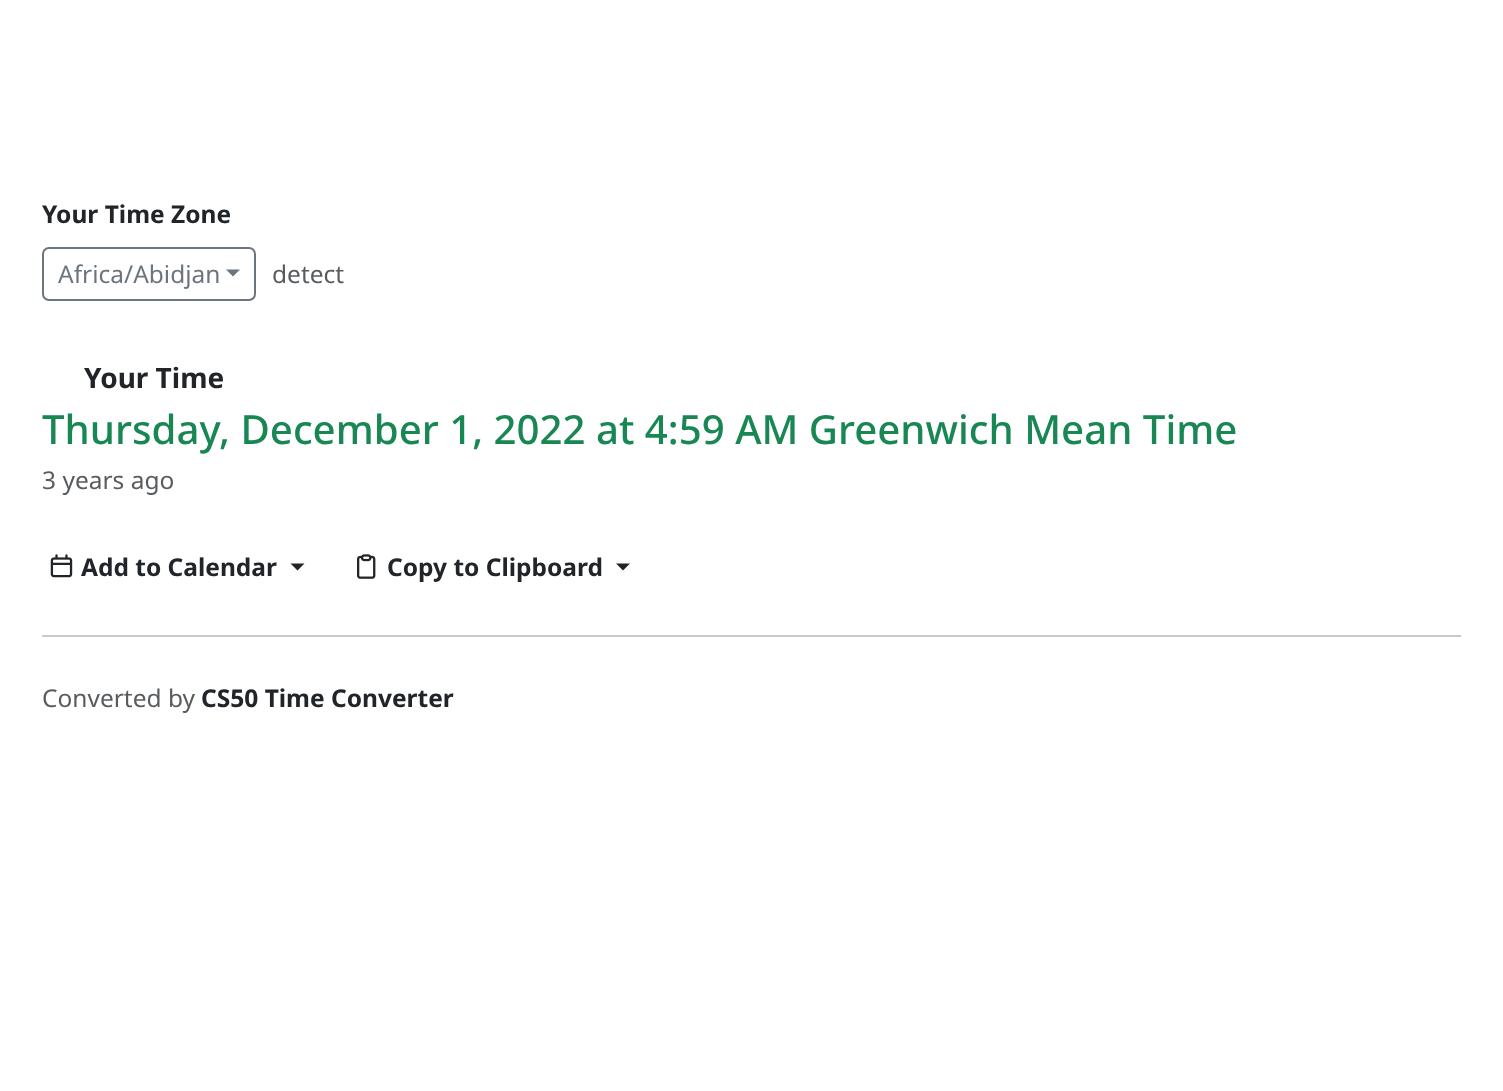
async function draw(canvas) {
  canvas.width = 1503;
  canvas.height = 1091;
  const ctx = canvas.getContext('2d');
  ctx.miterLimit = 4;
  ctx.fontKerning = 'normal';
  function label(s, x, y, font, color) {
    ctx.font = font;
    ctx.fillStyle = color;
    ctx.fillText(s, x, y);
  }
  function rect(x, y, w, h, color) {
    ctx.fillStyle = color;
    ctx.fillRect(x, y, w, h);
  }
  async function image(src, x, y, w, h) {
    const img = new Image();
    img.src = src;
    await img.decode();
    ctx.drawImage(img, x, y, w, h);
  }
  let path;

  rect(0, 0, 1503, 1091, '#fff');
  label('Your Time Zone', 42, 223, 'bold 24.5px Noto Sans', '#212529');
  ctx.beginPath();
  ctx.roundRect(43, 248, 212, 52, 6);
  ctx.strokeStyle = '#6c757d';
  ctx.lineWidth = 2;
  ctx.stroke();
  label('Africa/Abidjan', 58, 283, '24.5px Noto Sans', '#6c757d');
  path = new Path2D('M226 269.5H240L233 276.5Z');
  ctx.fill(path);
  label('detect', 272, 283, '24.5px Noto Sans', '#595c5f');
  label('Your Time', 84, 388, 'bold 28px Noto Sans', '#212529');
  label('Thursday, December 1, 2022 at 4:59 AM Greenwich Mean Time', 42, 444, '500 40.2px Noto Sans', '#198754');
  label('3 years ago', 42, 489, '24.5px Noto Sans', '#595c5f');
  await image('assets/img1.png', 50, 554, 23, 24);
  label('Add to Calendar', 81, 576, 'bold 24.5px Noto Sans', '#212529');
  path = new Path2D('M290.5 563.5H304.5L297.5 570.5Z');
  ctx.fill(path);
  await image('assets/img2.png', 357, 554, 19, 25);
  label('Copy to Clipboard', 387, 576, 'bold 24.5px Noto Sans', '#212529');
  path = new Path2D('M616 563.5H630L623 570.5Z');
  ctx.fill(path);
  rect(42, 635, 1419, 2, '#c8c9ca');
  label('Converted by', 42, 707, '24.5px Noto Sans', '#595c5f');
  label('CS50 Time Converter', 201, 707, 'bold 24.5px Noto Sans', '#212529');
}

draw(document.querySelector('canvas'));
